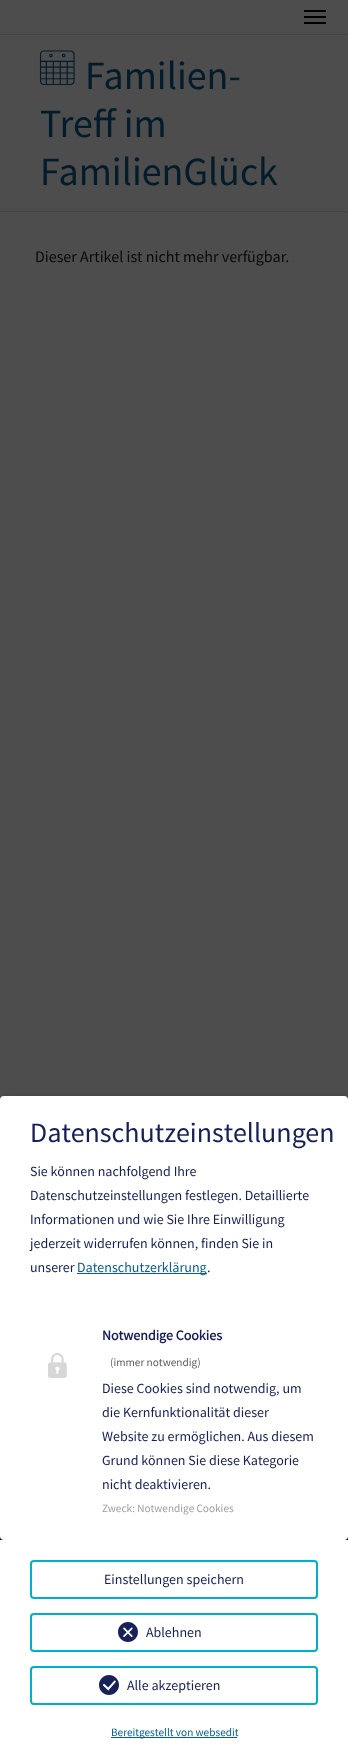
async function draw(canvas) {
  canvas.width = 348;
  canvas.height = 1760;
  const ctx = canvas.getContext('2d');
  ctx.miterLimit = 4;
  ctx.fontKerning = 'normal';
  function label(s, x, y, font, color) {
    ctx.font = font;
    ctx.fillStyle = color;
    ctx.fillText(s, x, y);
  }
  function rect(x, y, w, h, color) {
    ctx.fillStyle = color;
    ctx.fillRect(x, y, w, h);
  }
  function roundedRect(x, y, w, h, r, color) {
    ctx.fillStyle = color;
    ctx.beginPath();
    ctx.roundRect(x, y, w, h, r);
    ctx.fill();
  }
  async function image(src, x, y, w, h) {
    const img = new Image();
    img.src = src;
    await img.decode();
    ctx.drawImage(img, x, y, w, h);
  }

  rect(0, 0, 348, 1760, '#4d4d4d');
  rect(0, 34, 348, 1, '#434343');
  rect(304, 16, 22, 2, '#000');
  rect(304, 10, 22, 2, '#000');
  rect(304, 22, 22, 2, '#000');
  rect(0, 211, 348, 1, '#434343');
  label('0', 18, 85, '50px "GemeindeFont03"', '#021c2b');
  label('Familien-', 85, 89, '40px Source Sans Pro', '#021c2b');
  label('Treff im', 40, 137, '40px Source Sans Pro', '#021c2b');
  label('FamilienGlück', 40, 185, '40px Source Sans Pro', '#021c2b');
  label('Dieser Artikel ist nicht mehr verfügbar.', 35, 262, '16px Source Sans Pro', '#0a0a0a');
  rect(0, 1536, 348, 4, '#020d17');
  ctx.fillStyle = '#00000030';
  ctx.filter = 'blur(5px)';
  ctx.beginPath();
  ctx.roundRect(5, 1101, 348, 444, 4);
  ctx.fill();
  ctx.filter = 'none';
  ctx.fillStyle = '#00000033';
  ctx.filter = 'blur(3px)';
  ctx.beginPath();
  ctx.roundRect(0, 1100, 348, 444, 4);
  ctx.fill();
  ctx.filter = 'none';
  roundedRect(0, 1096, 348, 444, 4, '#fff');
  label('Datenschutzeinstellungen', 30, 1142, '28px Source Sans Pro', '#161f57');
  label('Sie können nachfolgend Ihre', 30, 1176, '14px Source Sans Pro', '#161f57');
  label('Datenschutzeinstellungen festlegen. Detaillierte', 30, 1200, '14px Source Sans Pro', '#161f57');
  label('Informationen und wie Sie Ihre Einwilligung', 30, 1224, '14px Source Sans Pro', '#161f57');
  label('jederzeit widerrufen können, finden Sie in', 30, 1248, '14px Source Sans Pro', '#161f57');
  label('unserer', 30, 1272, '14px Source Sans Pro', '#161f57');
  rect(77, 1273, 130, 1, '#085c90');
  label('Datenschutzerklärung', 77, 1272, '14px Source Sans Pro', '#085c90');
  label('.', 207, 1272, '14px Source Sans Pro', '#161f57');
  label('Notwendige Cookies', 102, 1340, 'bold 14px Source Sans Pro', '#161f57');
  await image('assets/img1.png', 48, 1353, 19, 25);
  label('(immer notwendig)', 110, 1366, '11.25px Source Sans Pro', '#5c5c5c');
  label('Diese Cookies sind notwendig, um', 102, 1393, '14px Source Sans Pro', '#161f57');
  label('die Kernfunktionalität dieser', 102, 1417, '14px Source Sans Pro', '#161f57');
  label('Website zu ermöglichen. Aus diesem', 102, 1441, '14px Source Sans Pro', '#161f57');
  label('Grund können Sie diese Kategorie', 102, 1465, '14px Source Sans Pro', '#161f57');
  label('nicht deaktivieren.', 102, 1489, '14px Source Sans Pro', '#161f57');
  label('Zweck: Notwendige Cookies', 102, 1512, '11.25px Source Sans Pro', '#a0a0a0');
  rect(0, 1540, 348, 220, '#fff');
  ctx.beginPath();
  ctx.roundRect(31, 1561, 286, 37, 3);
  ctx.strokeStyle = '#00afcb';
  ctx.lineWidth = 2;
  ctx.stroke();
  label('Einstellungen speichern', 104, 1584, '14px Source Sans Pro', '#161f57');
  ctx.beginPath();
  ctx.roundRect(31, 1614, 286, 37, 3);
  ctx.stroke();
  await image('assets/img2.png', 118, 1622, 20, 20);
  label('Ablehnen', 146, 1637, '14px Source Sans Pro', '#161f57');
  ctx.beginPath();
  ctx.roundRect(31, 1667, 286, 37, 3);
  ctx.stroke();
  await image('assets/img3.png', 99, 1675, 20, 20);
  label('Alle akzeptieren', 127, 1690, '14px Source Sans Pro', '#161f57');
  rect(111, 1737, 126, 1, '#085c90');
  label('Bereitgestellt von websedit', 111, 1736, '11.25px Source Sans Pro', '#085c90');
}

draw(document.querySelector('canvas'));
